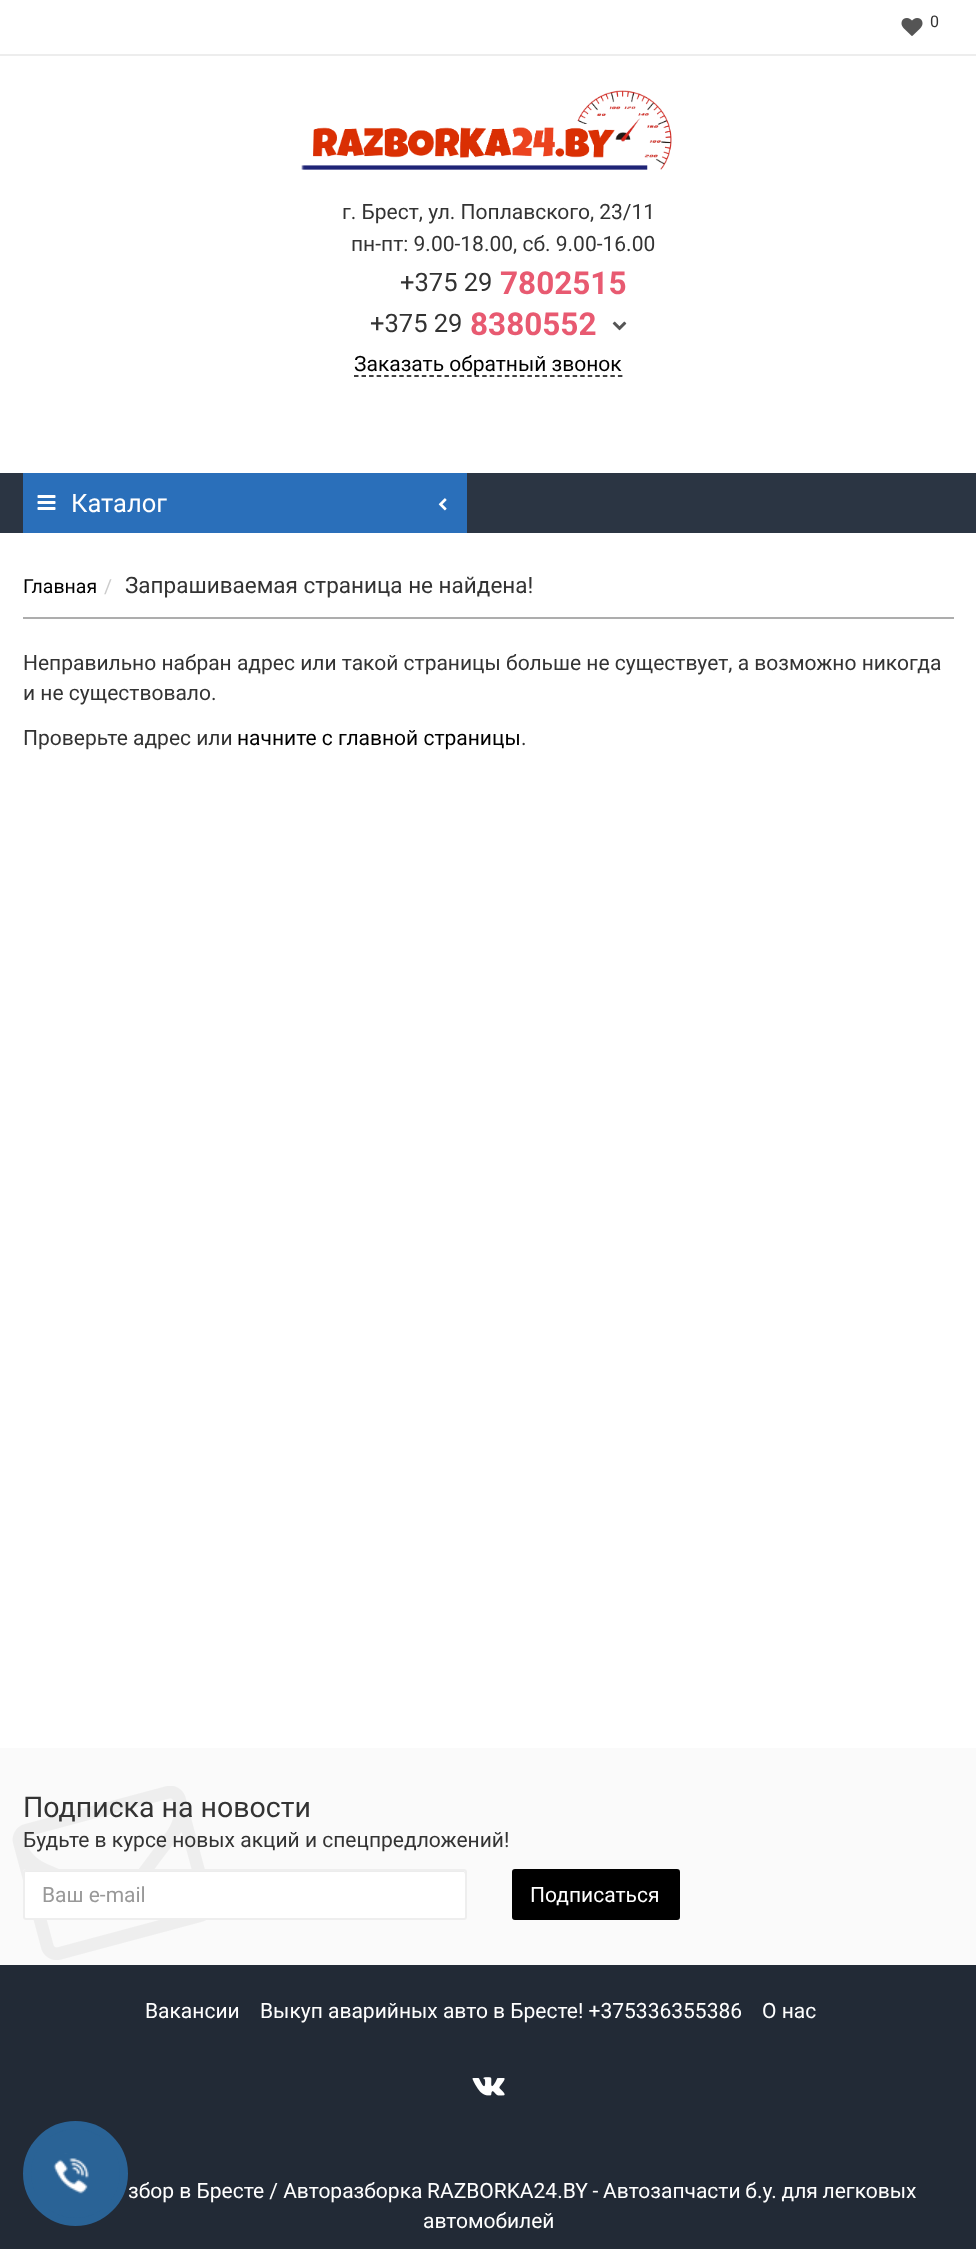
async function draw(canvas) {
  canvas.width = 976;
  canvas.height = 2249;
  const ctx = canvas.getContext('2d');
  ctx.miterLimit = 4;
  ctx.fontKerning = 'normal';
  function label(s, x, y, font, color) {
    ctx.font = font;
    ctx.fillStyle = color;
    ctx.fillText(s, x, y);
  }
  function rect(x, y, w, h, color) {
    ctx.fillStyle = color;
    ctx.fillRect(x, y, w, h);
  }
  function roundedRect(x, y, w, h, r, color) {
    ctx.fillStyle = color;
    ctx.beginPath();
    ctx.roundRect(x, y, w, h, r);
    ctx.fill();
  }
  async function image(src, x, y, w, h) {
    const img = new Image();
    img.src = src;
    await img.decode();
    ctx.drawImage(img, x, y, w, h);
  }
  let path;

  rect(0, 0, 976, 2249, '#fff');
  rect(0, 54, 976, 2, '#ededed');
  await image('assets/img1.png', 901, 18, 22, 18);
  label('0', 930, 27, '16px Roboto', '#333');
  await image('assets/img2.png', 301, 90, 371, 80);
  label('г. Брест, ул. Поплавского, 23/11', 342, 219, '21px Roboto', '#333');
  label('пн-пт: 9.00-18.00, сб. 9.00-16.00', 351, 251, '21px Roboto', '#333');
  label('+375 29', 400, 291, '25.5px Roboto', '#333');
  label('7802515', 500, 294, 'bold 31.5px Roboto', '#e85a71');
  label('+375 29', 370, 332, '25.5px Roboto', '#333');
  label('8380552', 470, 335, 'bold 31.5px Roboto', '#e85a71');
  await image('assets/img3.png', 612, 321, 15, 10);
  path = new Path2D('M354 376H622.5');
  ctx.strokeStyle = '#000';
  ctx.lineWidth = 1.5;
  ctx.setLineDash([4.5, 3.04]);
  ctx.stroke(path);
  label('Заказать обратный звонок', 354, 371, '21px Roboto', '#000');
  rect(0, 473, 976, 60, '#2b3543');
  rect(23, 473, 444, 60, '#2a6fba');
  await image('assets/img4.png', 37, 495, 19, 15);
  label('Каталог', 71, 512, '25.5px Roboto', '#fff');
  await image('assets/img5.png', 438, 498, 9, 13);
  rect(23, 617, 931, 2, '#adadad');
  label('Главная', 23, 593, '19.5px Roboto', '#000');
  label('/', 104, 593, '19.5px Roboto', '#ccc');
  label('Запрашиваемая страница не найдена!', 125, 593, '22.5px Roboto', '#333');
  label('Неправильно набран адрес или такой страницы больше не существует, а возможно никогда', 23, 670, '21px Roboto', '#333');
  label('и не существовало.', 23, 700, '21px Roboto', '#333');
  label('Проверьте адрес или', 23, 745, '21px Roboto', '#333');
  label('начните с главной страницы', 237, 745, '21px Roboto', '#000');
  label('.', 521, 745, '21px Roboto', '#333');
  rect(0, 1748, 976, 217, '#fafafa');
  await image('assets/img6.png', 12, 1786, 194, 174);
  label('Подписка на новости', 23, 1817, '28.5px Roboto', '#333');
  label('Будьте в курсе новых акций и спецпредложений!', 23, 1847, '21px Roboto', '#333');
  roundedRect(23, 1869, 444, 51, 3, '#fff');
  ctx.fillStyle = '#ececec';
  path = new Path2D('M26 1872H464L465 1874C465 1873 465 1871 464 1871H26L24 1872V1874C24 1873 25 1872 26 1872Z');
  ctx.fill(path);
  ctx.beginPath();
  ctx.roundRect(24, 1870, 442, 49, 2);
  ctx.strokeStyle = '#eee';
  ctx.lineWidth = 2;
  ctx.setLineDash([]);
  ctx.stroke();
  label('Ваш e-mail', 42, 1902, '21px Roboto', '#999');
  ctx.fillStyle = '#000';
  ctx.beginPath();
  ctx.roundRect(513, 1870, 166, 49, 2);
  ctx.fill();
  ctx.strokeStyle = '#000';
  ctx.stroke();
  label('Подписаться', 530, 1902, '21px Roboto', '#fff');
  rect(0, 1965, 976, 284, '#222a36');
  label('Вакансии', 145, 2018, '21px Roboto', '#fff');
  label('Выкуп аварийных авто в Бресте! +375336355386', 260, 2018, '21px Roboto', '#fff');
  label('О нас', 762, 2018, '21px Roboto', '#fff');
  await image('assets/img7.png', 472, 2077, 33, 19);
  label('збор в Бресте / Авторазборка', 128, 2198, '21px Roboto', '#fff');
  ctx.wordSpacing = '-0.5px';
  label('RAZBORKA24.BY - Автозапчасти б.у. для легковых', 427, 2198, '21px Roboto', '#fff');
  ctx.wordSpacing = '0px';
  label('автомобилей', 423, 2228, '21px Roboto', '#fff');
  ctx.fillStyle = '#2a6396';
  ctx.beginPath();
  ctx.arc(75.5, 2173.5, 48.5, 0, 2 * Math.PI);
  ctx.fill();
  ctx.strokeStyle = '#2a6396';
  ctx.lineWidth = 8;
  ctx.stroke();
  await image('assets/img8.png', 53, 2153, 36, 41);
}

draw(document.querySelector('canvas'));
